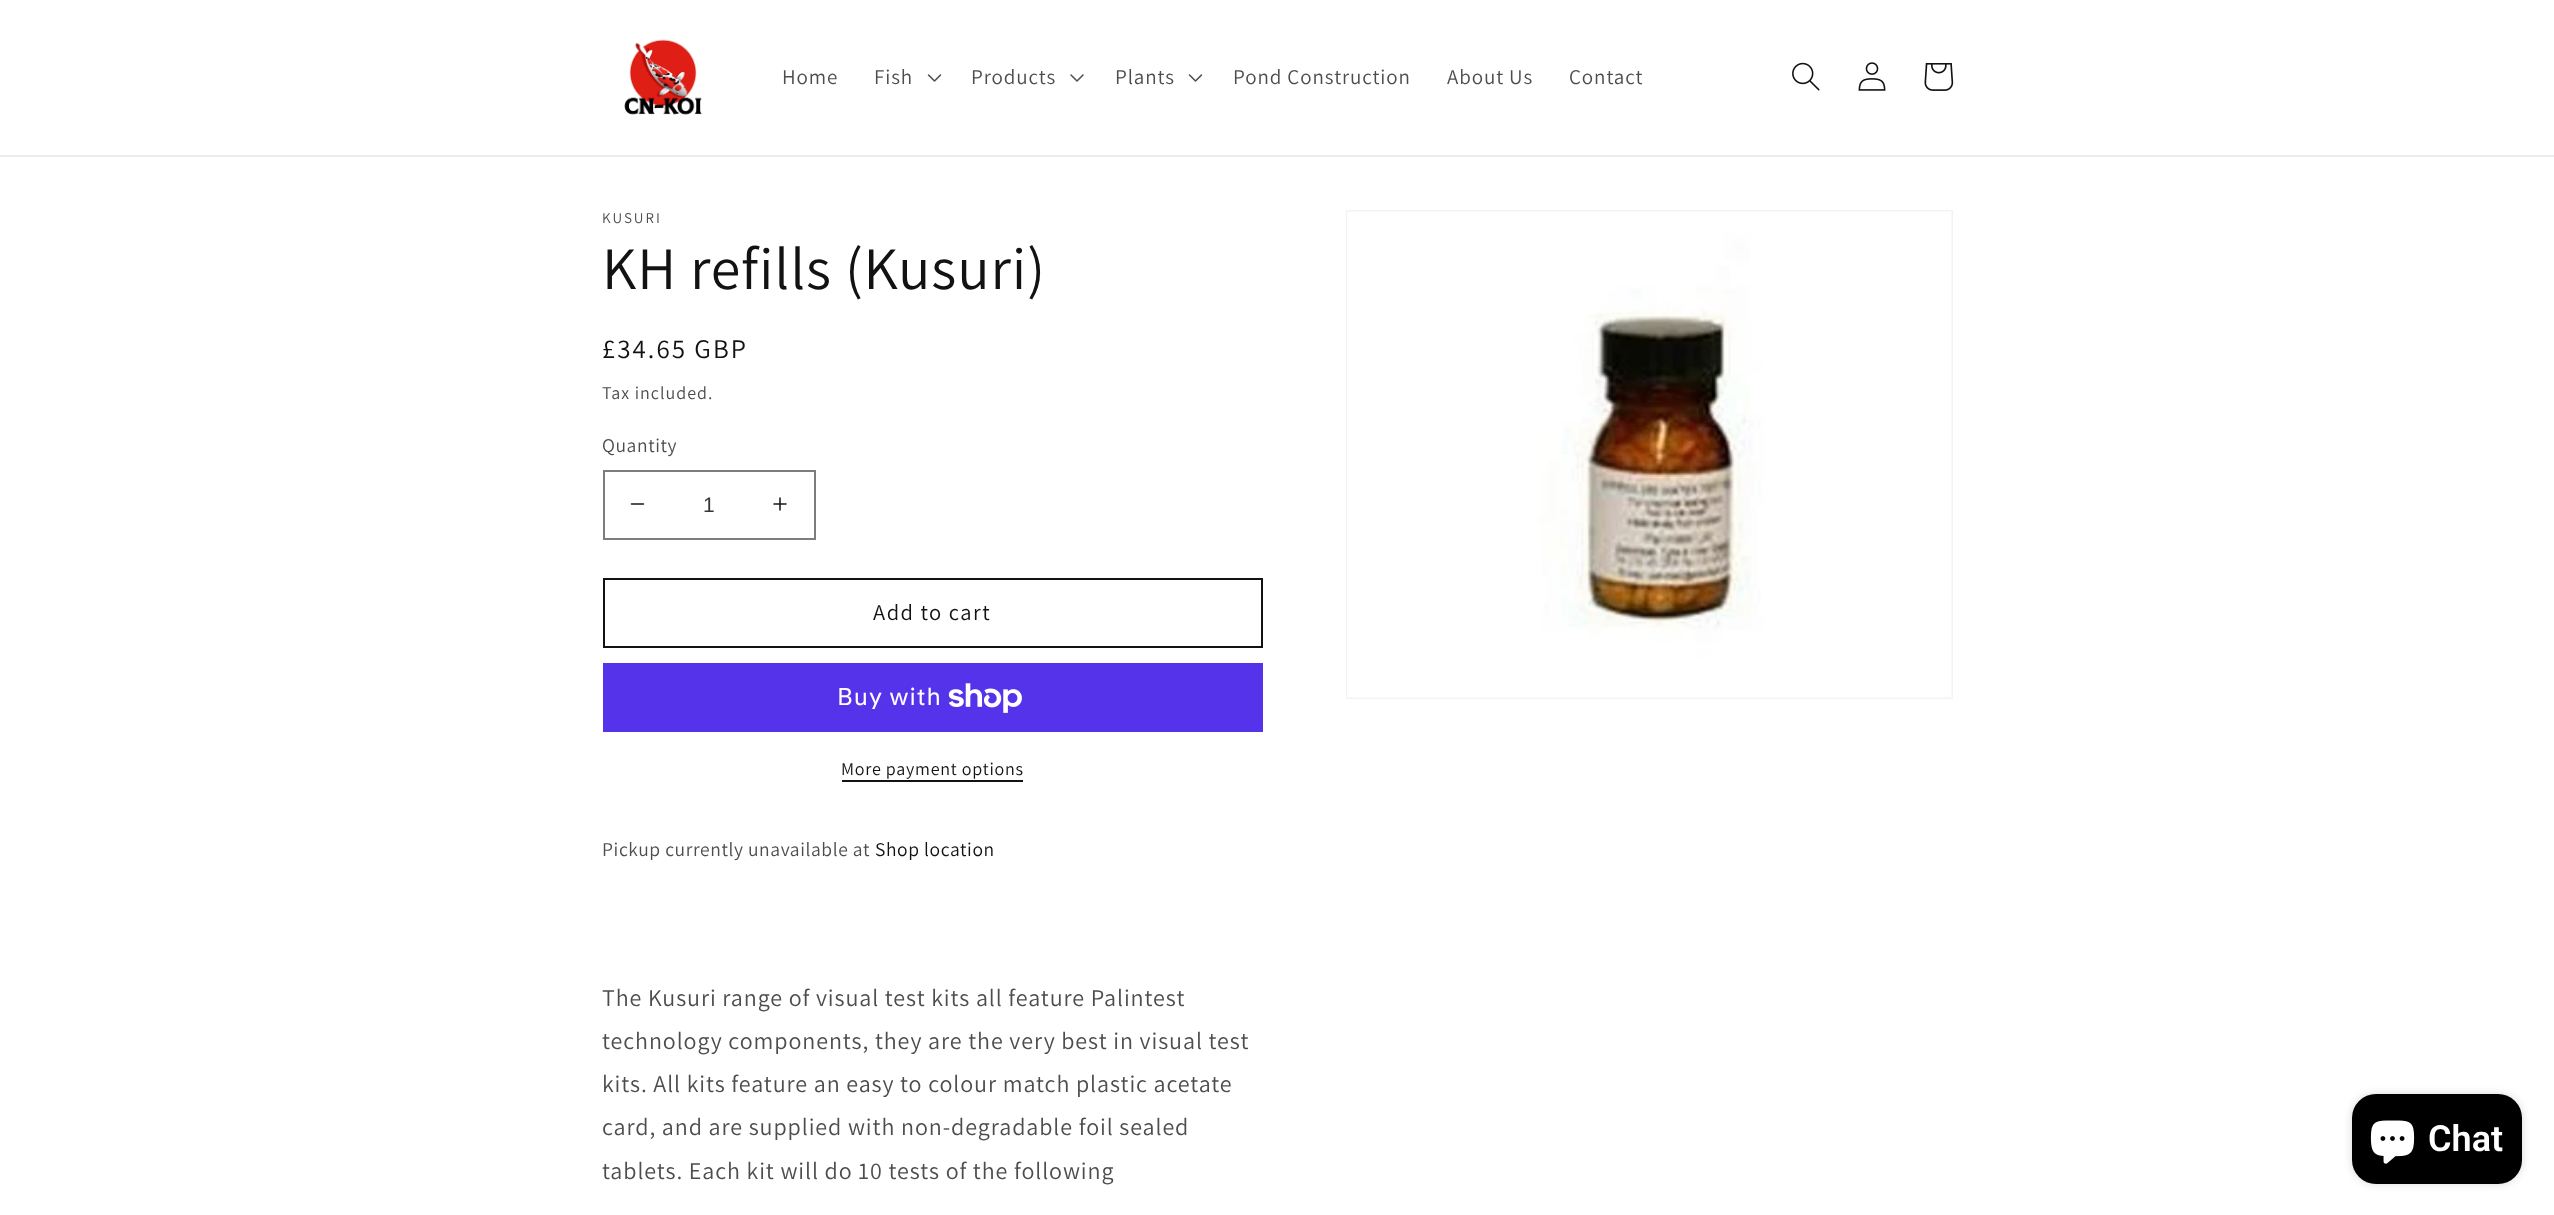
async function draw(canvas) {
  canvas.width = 2554;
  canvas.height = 1215;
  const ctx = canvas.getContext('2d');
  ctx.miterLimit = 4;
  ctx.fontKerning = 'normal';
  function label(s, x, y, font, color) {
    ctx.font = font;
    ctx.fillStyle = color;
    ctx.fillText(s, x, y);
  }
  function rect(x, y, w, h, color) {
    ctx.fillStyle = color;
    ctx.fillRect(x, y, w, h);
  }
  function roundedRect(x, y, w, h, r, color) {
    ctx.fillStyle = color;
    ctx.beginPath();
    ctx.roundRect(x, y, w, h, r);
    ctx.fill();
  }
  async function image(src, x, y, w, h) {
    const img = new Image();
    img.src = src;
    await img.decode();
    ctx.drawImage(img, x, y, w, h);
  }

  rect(0, 0, 2554, 1215, '#fff');
  rect(0, 155, 2554, 2, '#ececec');
  await image('assets/img1.png', 624, 39, 78, 76);
  ctx.letterSpacing = '0.9px';
  label('Home', 782, 84, '21px Assistant', '#4d4d4d');
  label('Fish', 874, 84, '21px Assistant', '#4d4d4d');
  await image('assets/img2.png', 927, 74, 15, 8);
  label('Products', 971, 84, '21px Assistant', '#4d4d4d');
  await image('assets/img3.png', 1070, 74, 14, 8);
  label('Plants', 1115, 84, '21px Assistant', '#4d4d4d');
  await image('assets/img2.png', 1188, 74, 15, 8);
  label('Pond Construction', 1233, 84, '21px Assistant', '#4d4d4d');
  label('About Us', 1447, 84, '21px Assistant', '#4d4d4d');
  label('Contact', 1569, 84, '21px Assistant', '#4d4d4d');
  await image('assets/img4.png', 1792, 62, 28, 29);
  await image('assets/img5.png', 1858, 62, 28, 29);
  await image('assets/img6.png', 1924, 63, 30, 28);
  ctx.letterSpacing = '2px';
  label('KUSURI', 602, 223, '15px Assistant', '#4d4d4d');
  ctx.letterSpacing = '0.9px';
  label('KH refills (Kusuri)', 602, 289, '60px Assistant', '#121212');
  ctx.letterSpacing = '2px';
  label('£34.65 GBP', 602, 358, '27px Assistant', '#121212');
  ctx.letterSpacing = '1px';
  label('Tax included.', 602, 399, '18px Assistant', '#4d4d4d');
  ctx.letterSpacing = '0.6px';
  label('Quantity', 602, 452, '19.5px Assistant', '#4d4d4d');
  await image('assets/img7.png', 630, 503, 15, 2);
  await image('assets/img8.png', 773, 497, 14, 14);
  ctx.strokeStyle = '#7d7d7d';
  ctx.lineWidth = 2;
  ctx.strokeRect(604, 471, 211, 68);
  ctx.letterSpacing = '0px';
  label('1', 703, 512, '21px Liberation Sans', '#363636');
  ctx.strokeStyle = '#121212';
  ctx.strokeRect(604, 579, 658, 68);
  ctx.letterSpacing = '1.5px';
  label('Add to cart', 873, 620, '22.5px Assistant', '#121212');
  rect(603, 663, 660, 69, '#5433eb');
  ctx.letterSpacing = '0.9px';
  label('Buy with', 837, 705, '24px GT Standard', '#fff');
  await image('assets/img9.png', 948, 683, 74, 30);
  ctx.letterSpacing = '0.75px';
  label('More payment options', 841, 775, '18px Assistant', '#121212');
  rect(842, 780, 181, 2, '#121212');
  ctx.letterSpacing = '0.6px';
  label('Pickup currently unavailable at', 602, 856, '19.5px Assistant', '#4d4d4d');
  label('Shop location', 875, 856, '19.5px Assistant', '#121212');
  ctx.letterSpacing = '0.9px';
  label('The Kusuri range of visual test kits all feature Palintest', 602, 1006, '24px Assistant', '#4d4d4d');
  label('technology components, they are the very best in visual test', 602, 1049, '24px Assistant', '#4d4d4d');
  label('kits. All kits feature an easy to colour match plastic acetate', 602, 1092, '24px Assistant', '#4d4d4d');
  label('card, and are supplied with non-degradable foil sealed', 602, 1135, '24px Assistant', '#4d4d4d');
  label('tablets. Each kit will do 10 tests of the following', 602, 1179, '24px Assistant', '#4d4d4d');
  ctx.strokeStyle = '#f3f3f3';
  ctx.strokeRect(1347, 211, 605, 487);
  await image('assets/img10.png', 1347, 211, 605, 487);
  ctx.fillStyle = '#00000026';
  ctx.filter = 'blur(4px)';
  ctx.beginPath();
  ctx.roundRect(2352, 1094, 170, 90, 24);
  ctx.fill();
  ctx.filter = 'none';
  roundedRect(2352, 1094, 170, 90, 24, '#000');
  await image('assets/img11.png', 2370, 1120, 45, 44);
  ctx.letterSpacing = '0px';
  label('Chat', 2428, 1151, '600 36px Roboto', '#fff');
}

draw(document.querySelector('canvas'));
